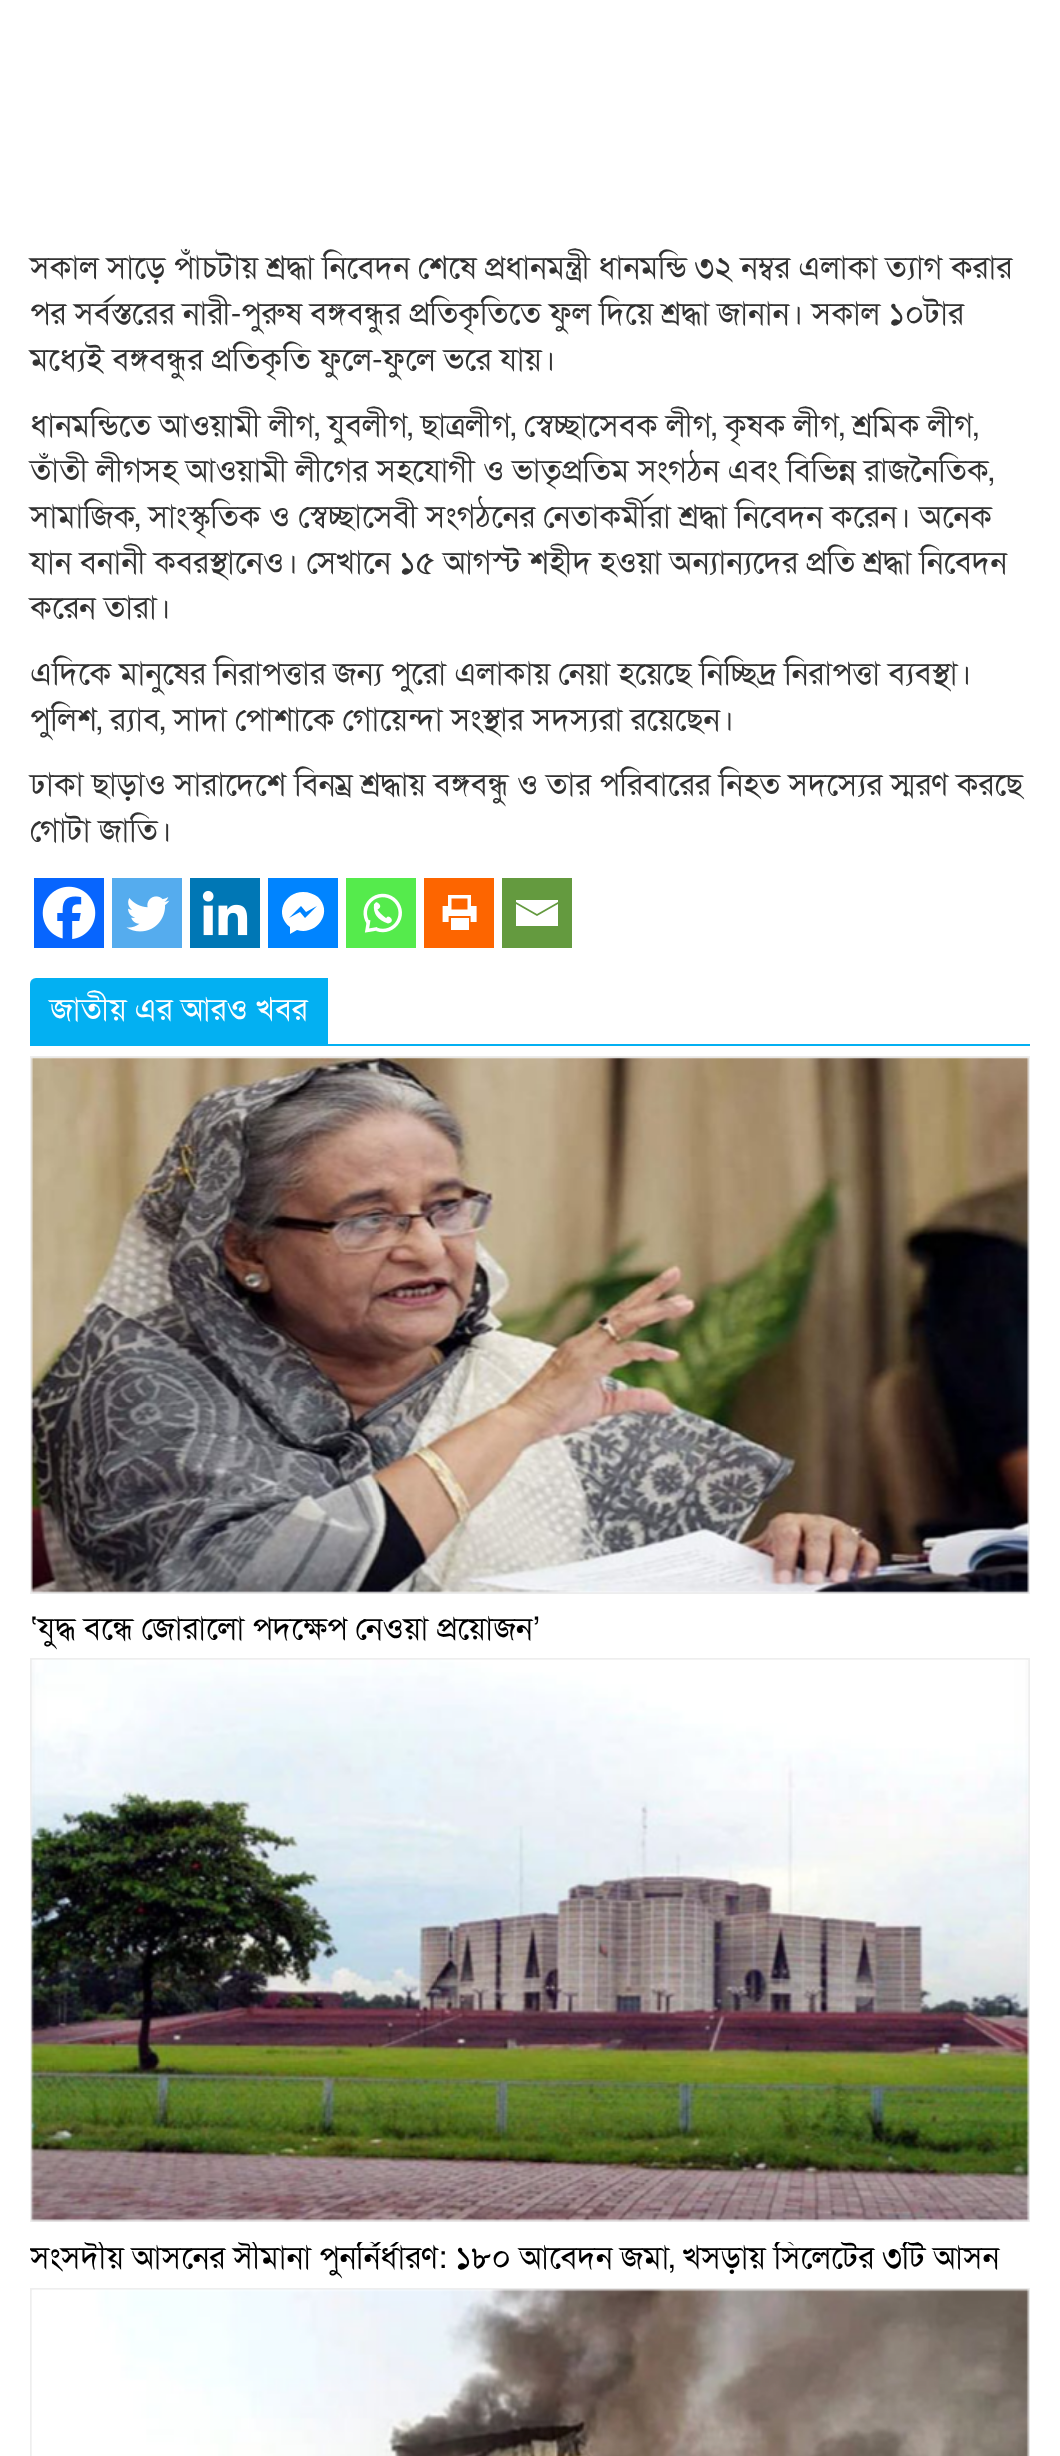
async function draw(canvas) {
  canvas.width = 1060;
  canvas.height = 2456;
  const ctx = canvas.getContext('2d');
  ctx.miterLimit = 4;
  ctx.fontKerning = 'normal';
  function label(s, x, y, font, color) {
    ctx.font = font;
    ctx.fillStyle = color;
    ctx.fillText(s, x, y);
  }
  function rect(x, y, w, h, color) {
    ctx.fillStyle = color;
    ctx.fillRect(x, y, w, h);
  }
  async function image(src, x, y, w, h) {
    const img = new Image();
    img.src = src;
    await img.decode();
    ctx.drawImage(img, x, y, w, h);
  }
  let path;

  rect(0, 0, 1060, 2456, '#fff');
  label('সকাল সাড়ে পাঁচটায় শ্রদ্ধা নিবেদন শেষে প্রধানমন্ত্রী ধানমন্ডি ৩২ নম্বর এলাকা ত্যাগ করার', 30, 278, '32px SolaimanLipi', '#333');
  label('পর সর্বস্তরের নারী-পুরুষ বঙ্গবন্ধুর প্রতিকৃতিতে ফুল দিয়ে শ্রদ্ধা জানান। সকাল ১০টার', 30, 324, '32px SolaimanLipi', '#333');
  label('মধ্যেই বঙ্গবন্ধুর প্রতিকৃতি ফুলে-ফুলে ভরে যায়।', 30, 370, '32px SolaimanLipi', '#333');
  label('ধানমন্ডিতে আওয়ামী লীগ, যুবলীগ, ছাত্রলীগ, স্বেচ্ছাসেবক লীগ, কৃষক লীগ, শ্রমিক লীগ,', 30, 436, '32px SolaimanLipi', '#333');
  label('তাঁতী লীগসহ আওয়ামী লীগের সহযোগী ও ভাতৃপ্রতিম সংগঠন এবং বিভিন্ন রাজনৈতিক,', 30, 481, '32px SolaimanLipi', '#333');
  label('সামাজিক, সাংস্কৃতিক ও স্বেচ্ছাসেবী সংগঠনের নেতাকর্মীরা শ্রদ্ধা নিবেদন করেন। অনেক', 30, 527, '32px SolaimanLipi', '#333');
  label('যান বনানী কবরস্থানেও। সেখানে ১৫ আগস্ট শহীদ হওয়া অন্যান্যদের প্রতি শ্রদ্ধা নিবেদন', 30, 573, '32px SolaimanLipi', '#333');
  label('করেন তারা।', 30, 618, '32px SolaimanLipi', '#333');
  label('এদিকে মানুষের নিরাপত্তার জন্য পুরো এলাকায় নেয়া হয়েছে নিচ্ছিদ্র নিরাপত্তা ব্যবস্থা।', 30, 684, '32px SolaimanLipi', '#333');
  label('পুলিশ, র‌্যাব, সাদা পোশাকে গোয়েন্দা সংস্থার সদস্যরা রয়েছেন।', 30, 730, '32px SolaimanLipi', '#333');
  label('ঢাকা ছাড়াও সারাদেশে বিনম্র শ্রদ্ধায় বঙ্গবন্ধু ও তার পরিবারের নিহত সদস্যের স্মরণ করছে', 30, 795, '32px SolaimanLipi', '#333');
  label('গোটা জাতি।', 30, 841, '32px SolaimanLipi', '#333');
  rect(34, 878, 70, 70, '#0765fe');
  await image('assets/img1.png', 42, 886, 54, 53);
  rect(112, 878, 70, 70, '#55acee');
  await image('assets/img2.png', 126, 896, 44, 36);
  rect(190, 878, 70, 70, '#0077b5');
  await image('assets/img3.png', 202, 890, 46, 46);
  rect(268, 878, 70, 70, '#0084ff');
  ctx.fillStyle = '#fff';
  path = new Path2D('M303 892C284 892 274 915 290 927V934L297 930C316 936 334 913 318 897C314 894 309 892 303 892ZM305 918L300 912L289 918L301 906L306 912L317 906Z');
  ctx.fill(path);
  rect(346, 878, 70, 70, '#55eb4c');
  await image('assets/img4.png', 363, 893, 39, 40);
  rect(424, 878, 70, 70, '#fd6500');
  await image('assets/img5.png', 442, 895, 35, 35);
  rect(502, 878, 70, 70, '#649a3f');
  ctx.fillStyle = '#fff';
  path = new Path2D('M514 900H558V902L537 914L516 902V900M516 904L537 916L558 904V926H516V904');
  ctx.fill(path);
  rect(30, 1044, 1000, 2, '#03b0f2');
  ctx.beginPath();
  ctx.roundRect(30, 978, 298, 66, [6, 0, 0, 0]);
  ctx.fill();
  label('জাতীয় এর আরও খবর', 50, 1020, '32px SolaimanLipi', '#fff');
  ctx.strokeStyle = '#eee';
  ctx.lineWidth = 2;
  ctx.strokeRect(31, 1057, 998, 536);
  await image('assets/img6.png', 31, 1056, 998, 538);
  ctx.save();
  ctx.beginPath();
  ctx.rect(30, 1614, 1000, 44);
  ctx.clip();
  label('‘যুদ্ধ বন্ধে জোরালো পদক্ষেপ নেওয়া প্রয়োজন’', 30, 1639, '32px SolaimanLipi', '#000');
  ctx.restore();
  ctx.strokeRect(31, 1659, 998, 562);
  await image('assets/img7.png', 31, 1659, 999, 563);
  ctx.save();
  ctx.beginPath();
  ctx.rect(30, 2242, 1000, 46);
  ctx.clip();
  label('সংসদীয় আসনের সীমানা পুনর্নির্ধারণ: ১৮০ আবেদন জমা, খসড়ায় সিলেটের ৩টি আসন', 30, 2268, '32px SolaimanLipi', '#000');
  ctx.restore();
  ctx.strokeRect(31, 2289, 998, 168);
  await image('assets/img8.png', 31, 2288, 999, 168);
}

draw(document.querySelector('canvas'));
